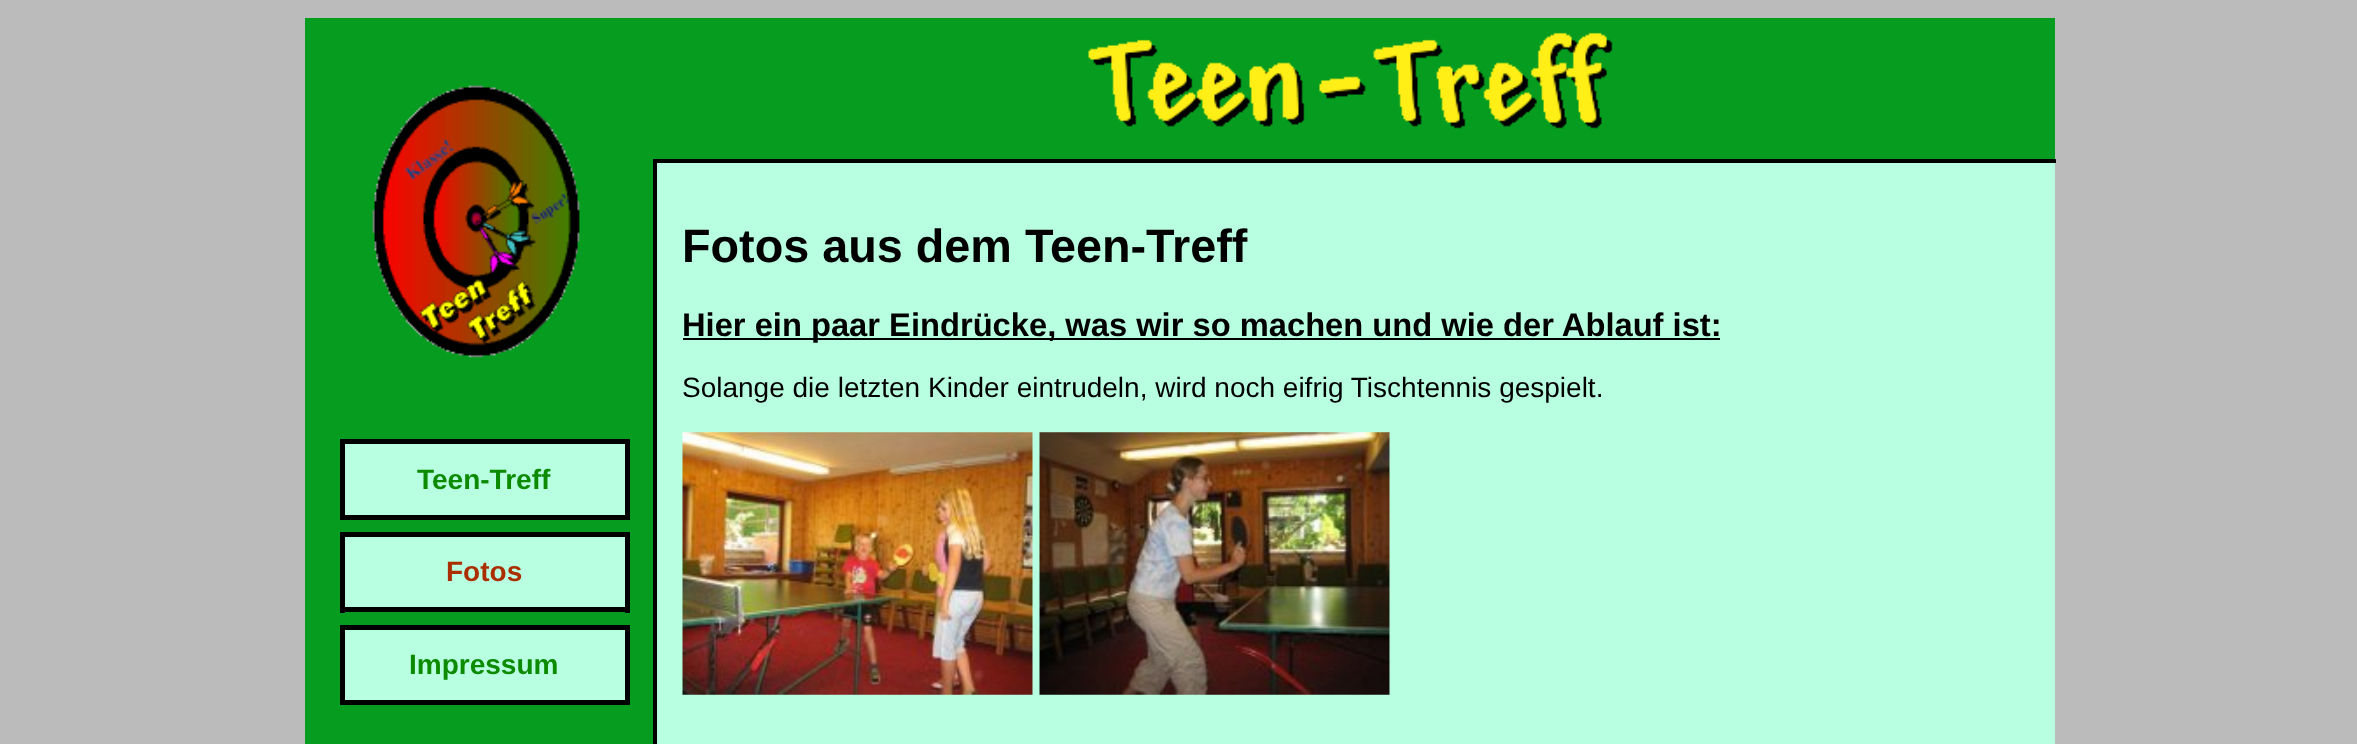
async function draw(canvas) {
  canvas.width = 2357;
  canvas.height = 744;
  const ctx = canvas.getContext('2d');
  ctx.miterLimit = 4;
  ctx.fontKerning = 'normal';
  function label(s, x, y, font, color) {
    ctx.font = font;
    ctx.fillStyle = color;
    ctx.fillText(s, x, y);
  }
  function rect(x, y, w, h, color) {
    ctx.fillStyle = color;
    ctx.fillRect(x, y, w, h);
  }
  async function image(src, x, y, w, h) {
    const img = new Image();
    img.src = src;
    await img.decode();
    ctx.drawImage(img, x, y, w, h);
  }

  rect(0, 0, 2357, 744, '#bbb');
  rect(305, 18, 350, 418, '#069c1f');
  await image('assets/img1.png', 372, 85, 208, 273);
  rect(655, 18, 1400, 141, '#069c1f');
  await image('assets/img2.png', 1088, 32, 525, 97);
  rect(657, 163, 1398, 581, '#b8ffe1');
  rect(653, 159, 1403, 4, '#000');
  rect(653, 159, 4, 585, '#000');
  label('Fotos aus dem Teen-Treff', 682, 262, 'bold 46.75px Liberation Sans', '#000');
  rect(683, 338, 1037, 2, '#000');
  label('Hier ein paar Eindrücke, was wir so machen und wie der Ablauf ist:', 682, 336, 'bold 32.7px Liberation Sans', '#000');
  label('Solange die letzten Kinder eintrudeln, wird noch eifrig Tischtennis gespielt.', 682, 397, '28px Liberation Sans', '#000');
  await image('assets/img3.png', 682, 432, 351, 263);
  await image('assets/img4.png', 1039, 432, 351, 263);
  rect(305, 436, 348, 308, '#069c1f');
  rect(345, 444, 280, 71, '#b8ffe1');
  rect(340, 439, 290, 5, '#000');
  rect(625, 439, 5, 81, '#000');
  rect(340, 515, 290, 5, '#000');
  rect(340, 439, 5, 81, '#000');
  label('Teen-Treff', 417, 489, 'bold 28px Liberation Sans', '#0c8a00');
  rect(345, 537, 280, 70, '#b8ffe1');
  rect(340, 532, 290, 5, '#000');
  rect(625, 532, 5, 81, '#000');
  rect(340, 607, 290, 5, '#000');
  rect(340, 532, 5, 81, '#000');
  label('Fotos', 446, 581, 'bold 28px Liberation Sans', '#ab2e00');
  rect(345, 630, 280, 70, '#b8ffe1');
  rect(340, 625, 290, 5, '#000');
  rect(625, 625, 5, 80, '#000');
  rect(340, 700, 290, 5, '#000');
  rect(340, 625, 5, 80, '#000');
  label('Impressum', 409, 674, 'bold 28px Liberation Sans', '#0c8a00');
}

draw(document.querySelector('canvas'));
